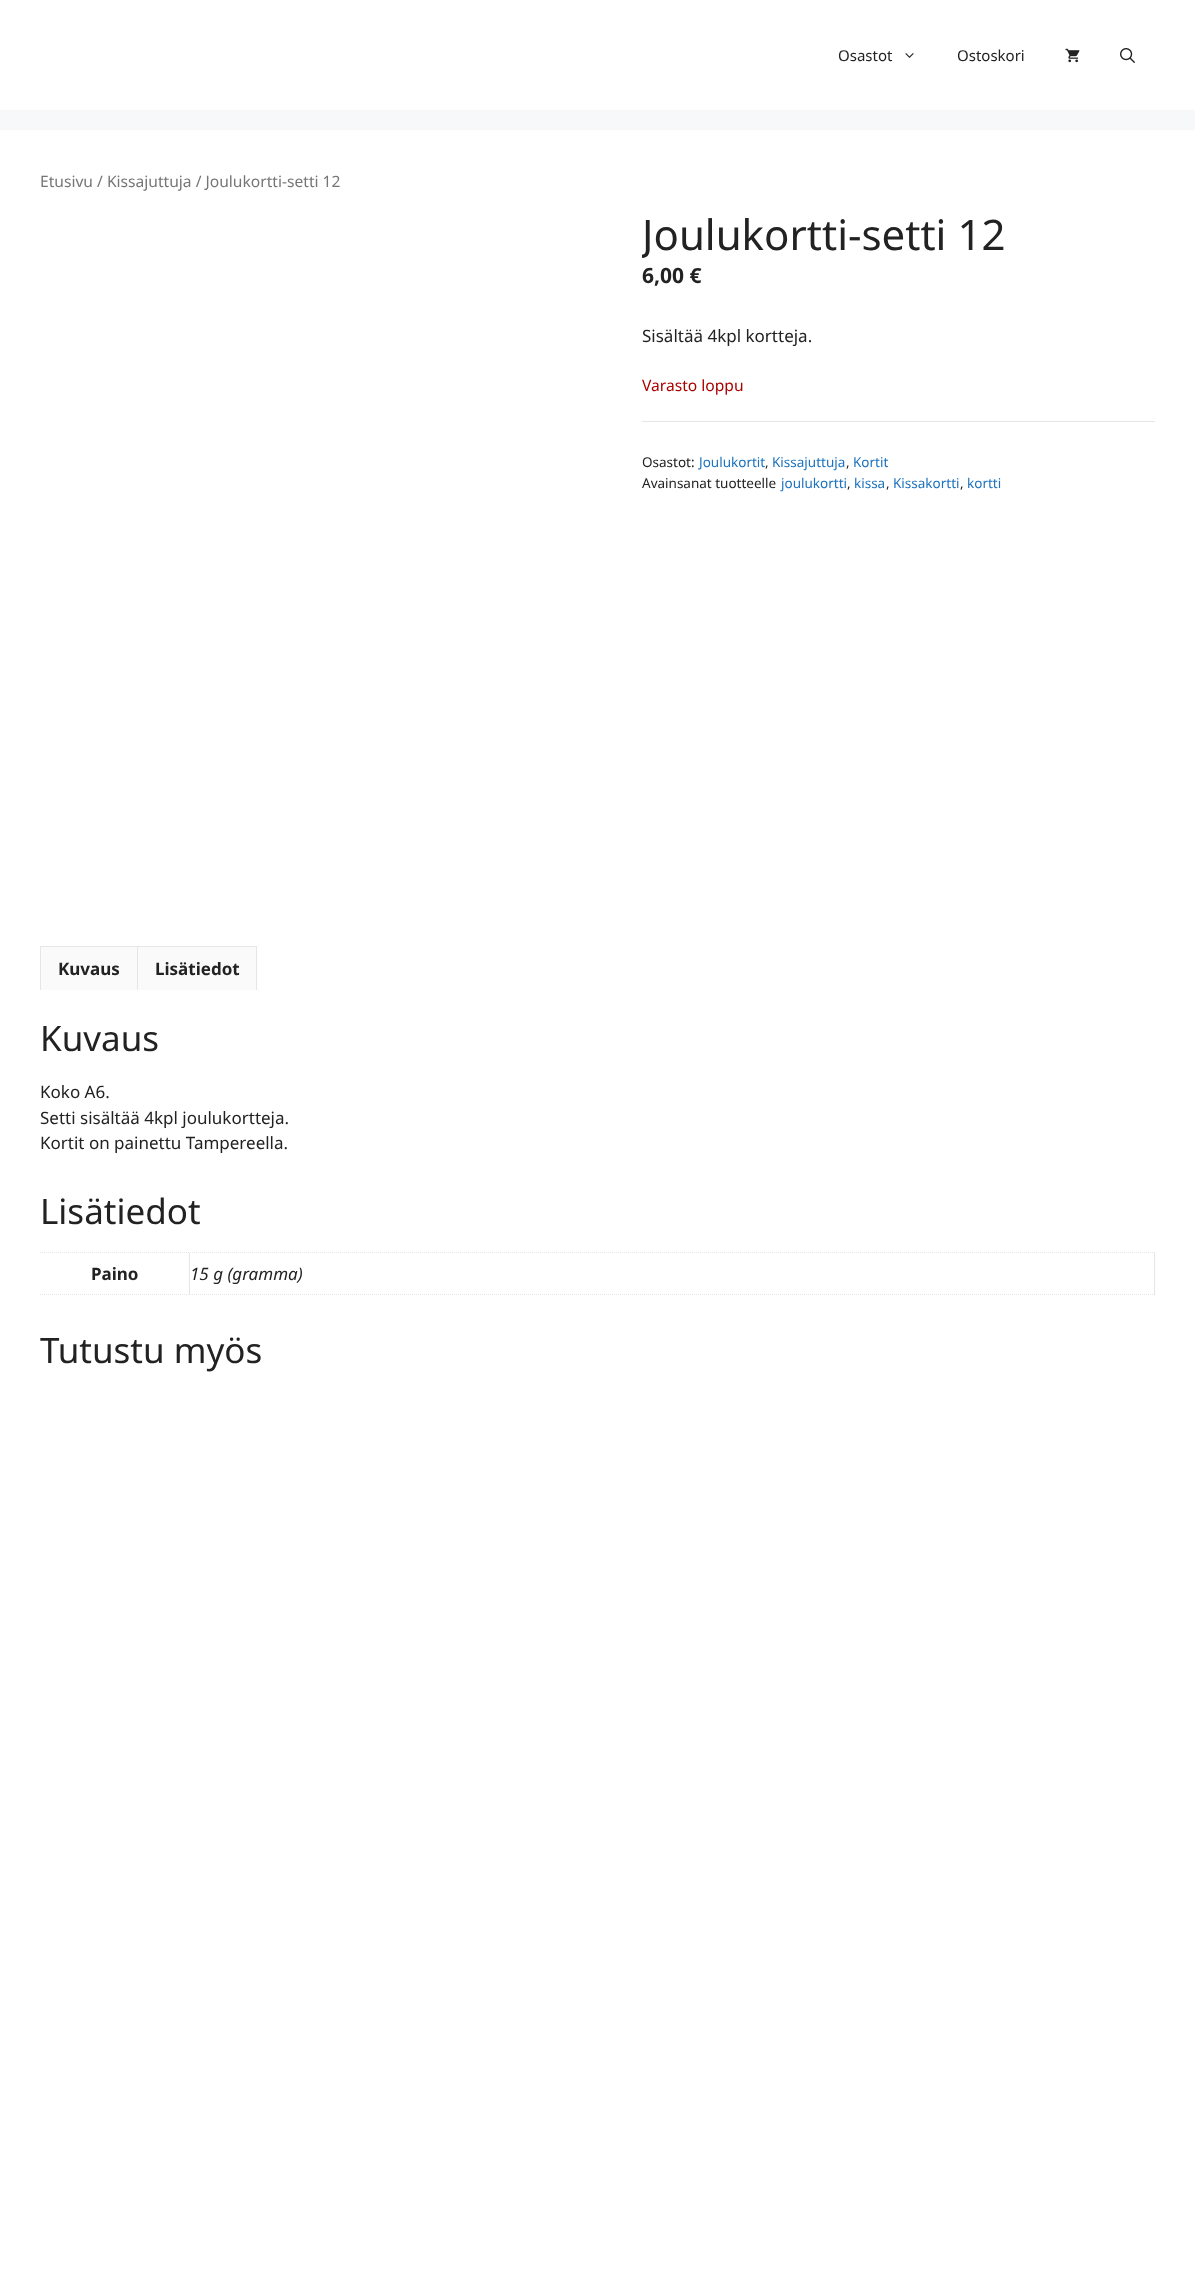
async function draw(canvas) {
  canvas.width = 1195;
  canvas.height = 2290;
  const ctx = canvas.getContext('2d');
  ctx.miterLimit = 4;
  ctx.fontKerning = 'normal';
  function label(s, x, y, font, color) {
    ctx.font = font;
    ctx.fillStyle = color;
    ctx.fillText(s, x, y);
  }
  function rect(x, y, w, h, color) {
    ctx.fillStyle = color;
    ctx.fillRect(x, y, w, h);
  }
  async function image(src, x, y, w, h) {
    const img = new Image();
    img.src = src;
    await img.decode();
    ctx.drawImage(img, x, y, w, h);
  }
  let path;

  rect(0, 0, 1195, 2290, '#f7f8f9');
  rect(0, 0, 1195, 110, '#fff');
  label('Osastot', 838, 61, '15px Noto Sans', '#222');
  await image('assets/img1.png', 905, 53, 9, 5);
  label('Ostoskori', 957, 61, '15px Noto Sans', '#222');
  await image('assets/img2.png', 1065, 48, 15, 15);
  await image('assets/img3.png', 1120, 48, 15, 15);
  rect(0, 130, 1195, 2160, '#fff');
  label('Etusivu / Kissajuttuja / Joulukortti-setti 12', 40, 187, '15.6px Noto Sans', '#767676');
  ctx.save();
  ctx.beginPath();
  ctx.rect(642, 209, 513, 284);
  ctx.clip();
  label('Joulukortti-setti 12', 642, 250, '42px Noto Sans', '#222');
  ctx.restore();
  label('6,00 €', 642, 283, 'bold 21px Noto Sans', '#222');
  label('Sisältää 4kpl kortteja.', 642, 342, '17px Noto Sans', '#222');
  label('Varasto loppu', 642, 391, '15.6px Noto Sans', '#a00');
  rect(642, 421, 513, 1, '#e6e6e6');
  label('Osastot:', 642, 467, '13.5px Noto Sans', '#222');
  label('Joulukortit', 699, 467, '13.5px Noto Sans', '#1e73be');
  label(',', 765, 467, '13.5px Noto Sans', '#222');
  label('Kissajuttuja', 772, 467, '13.5px Noto Sans', '#1e73be');
  label(',', 846, 467, '13.5px Noto Sans', '#222');
  label('Kortit', 853, 467, '13.5px Noto Sans', '#1e73be');
  label('Avainsanat tuotteelle', 642, 488, '13.5px Noto Sans', '#222');
  label('joulukortti', 781, 488, '13.5px Noto Sans', '#1e73be');
  label(',', 847, 488, '13.5px Noto Sans', '#222');
  label('kissa', 854, 488, '13.5px Noto Sans', '#1e73be');
  label(',', 886, 488, '13.5px Noto Sans', '#222');
  label('Kissakortti', 893, 488, '13.5px Noto Sans', '#1e73be');
  label(',', 960, 488, '13.5px Noto Sans', '#222');
  label('kortti', 967, 488, '13.5px Noto Sans', '#1e73be');
  rect(40, 946, 217, 44, '#fafafa');
  ctx.fillStyle = '#e6e6e6';
  path = new Path2D('M40 946H138L137 947H41Z');
  ctx.fill(path);
  ctx.fillStyle = '#00000014';
  path = new Path2D('M138 946V990H137V947Z');
  ctx.fill(path);
  path = new Path2D('M40 990V946L41 947V990Z');
  ctx.fill(path);
  label('Kuvaus', 58, 975, 'bold 17px Noto Sans', '#222');
  ctx.fillStyle = '#e6e6e6';
  path = new Path2D('M138 946H257L256 947H138Z');
  ctx.fill(path);
  ctx.fillStyle = '#00000014';
  path = new Path2D('M257 946V990H256V947Z');
  ctx.fill(path);
  label('Lisätiedot', 155, 975, 'bold 17px Noto Sans', '#222');
  label('Kuvaus', 40, 1051, '35px Noto Sans', '#222');
  label('Koko A6.', 40, 1098, '17px Noto Sans', '#222');
  label('Setti sisältää 4kpl joulukortteja.', 40, 1124, '17px Noto Sans', '#222');
  label('Kortit on painettu Tampereella.', 40, 1149, '17px Noto Sans', '#222');
  label('Lisätiedot', 40, 1224, '35px Noto Sans', '#222');
  path = new Path2D('M40 1252.5H1155');
  ctx.strokeStyle = '#e6e6e6';
  ctx.setLineDash([1, 1]);
  ctx.stroke(path);
  ctx.fillStyle = '#e6e6e6';
  path = new Path2D('M190 1253V1295L189 1294V1253Z');
  ctx.fill(path);
  path = new Path2D('M40 1294.5H190');
  ctx.stroke(path);
  label('Paino', 91, 1280, 'bold 17px Noto Sans', '#222');
  ctx.fillStyle = '#e6e6e6';
  path = new Path2D('M1155 1253V1295L1154 1294V1253Z');
  ctx.fill(path);
  path = new Path2D('M190 1294.5H1155');
  ctx.strokeStyle = '#0000001a';
  ctx.stroke(path);
  label('15 g (gramma)', 190, 1280, 'italic 17px Noto Sans', '#222');
  label('Tutustu myös', 40, 1363, '35px Noto Sans', '#222');
}

draw(document.querySelector('canvas'));
